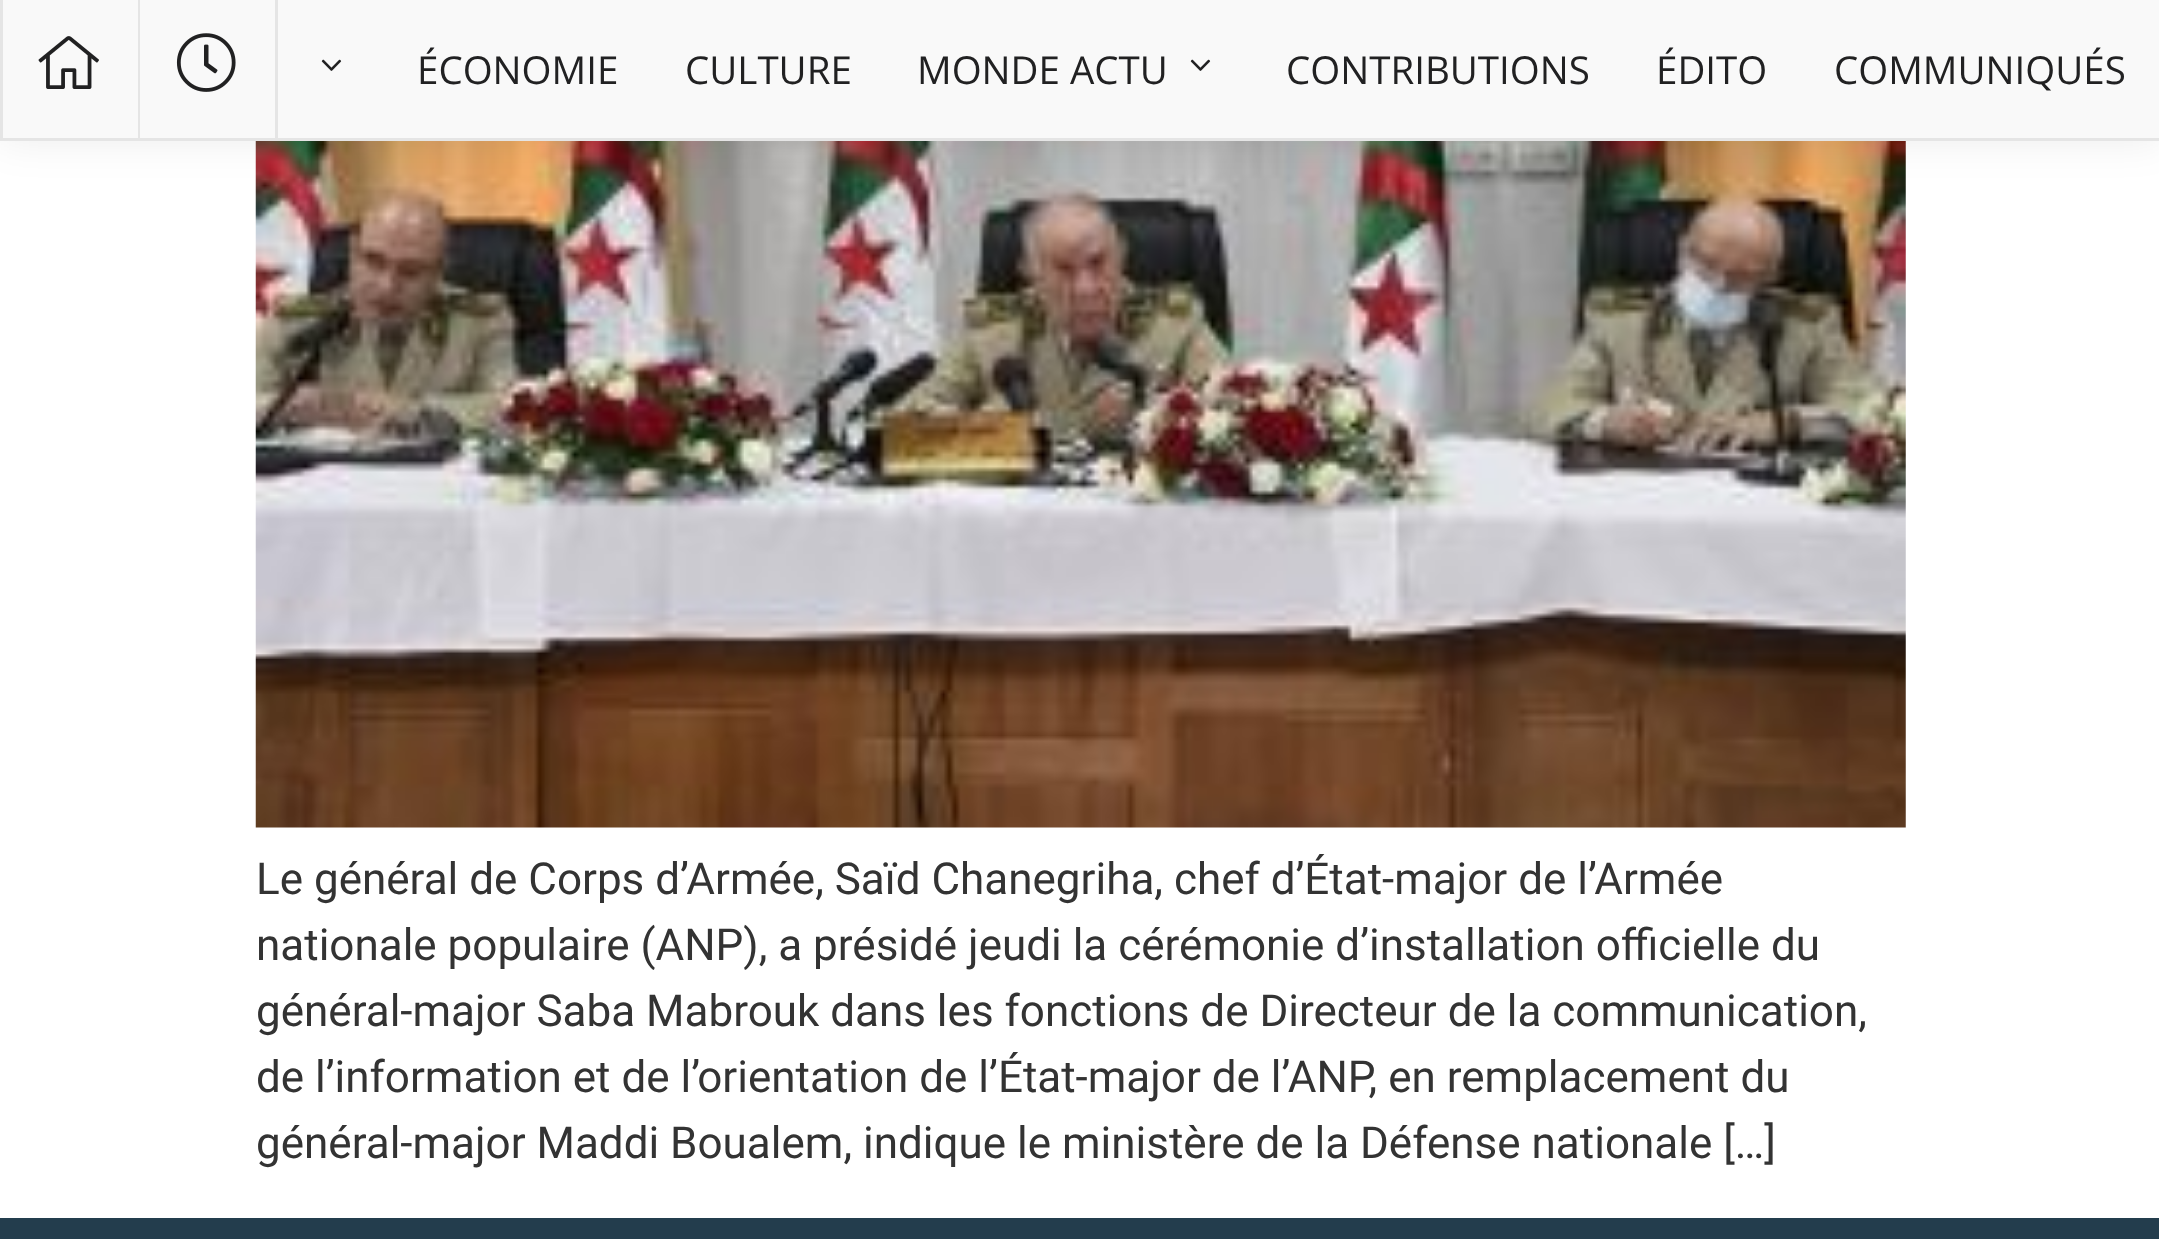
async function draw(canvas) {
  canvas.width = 2159;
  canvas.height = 1239;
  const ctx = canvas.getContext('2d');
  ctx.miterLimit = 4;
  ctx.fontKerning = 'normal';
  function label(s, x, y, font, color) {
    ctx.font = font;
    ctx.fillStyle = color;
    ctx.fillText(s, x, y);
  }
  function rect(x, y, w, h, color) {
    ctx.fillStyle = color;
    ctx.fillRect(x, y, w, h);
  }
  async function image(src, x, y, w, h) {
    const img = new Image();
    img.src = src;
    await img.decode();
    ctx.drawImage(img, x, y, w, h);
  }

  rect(0, 0, 2159, 1239, '#fff');
  await image('assets/img4.png', 255, 141, 1651, 687);
  ctx.fillStyle = '#00000014';
  ctx.filter = 'blur(20.5px)';
  ctx.beginPath();
  ctx.rect(0, 0, 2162, 140);
  ctx.fill();
  ctx.filter = 'none';
  rect(3, 0, 2156, 138, '#f9f9f9');
  rect(0, 138, 2159, 3, '#e5e5e5');
  rect(138, 0, 2, 138, '#e5e5e5');
  rect(0, 0, 3, 138, '#e5e5e5');
  await image('assets/img1.png', 38, 36, 61, 53);
  rect(275, 0, 3, 138, '#e5e5e5');
  await image('assets/img2.png', 176, 33, 60, 59);
  await image('assets/img3.png', 321, 59, 21, 12);
  label('ÉCONOMIE', 417, 84, '38.5px Open Sans', '#212122');
  label('CULTURE', 685, 84, '38.5px Open Sans', '#212122');
  label('MONDE ACTU', 917, 84, '38.5px Open Sans', '#212122');
  await image('assets/img3.png', 1190, 59, 21, 12);
  label('CONTRIBUTIONS', 1286, 84, '38.5px Open Sans', '#212122');
  label('ÉDITO', 1656, 84, '38.5px Open Sans', '#212122');
  label('COMMUNIQUÉS', 1834, 84, '38.5px Open Sans', '#212122');
  label('Le général de Corps d’Armée, Saïd Chanegriha, chef d’État-major de l’Armée', 256, 894, '44px Roboto', '#333');
  label('nationale populaire (ANP), a présidé jeudi la cérémonie d’installation officielle du', 256, 960, '44px Roboto', '#333');
  label('général-major Saba Mabrouk dans les fonctions de Directeur de la communication,', 256, 1026, '44px Roboto', '#333');
  label('de l’information et de l’orientation de l’État-major de l’ANP, en remplacement du', 256, 1092, '44px Roboto', '#333');
  label('général-major Maddi Boualem, indique le ministère de la Défense nationale […]', 256, 1158, '44px Roboto', '#333');
  rect(0, 1218, 2159, 21, '#233d4d');
}

draw(document.querySelector('canvas'));
